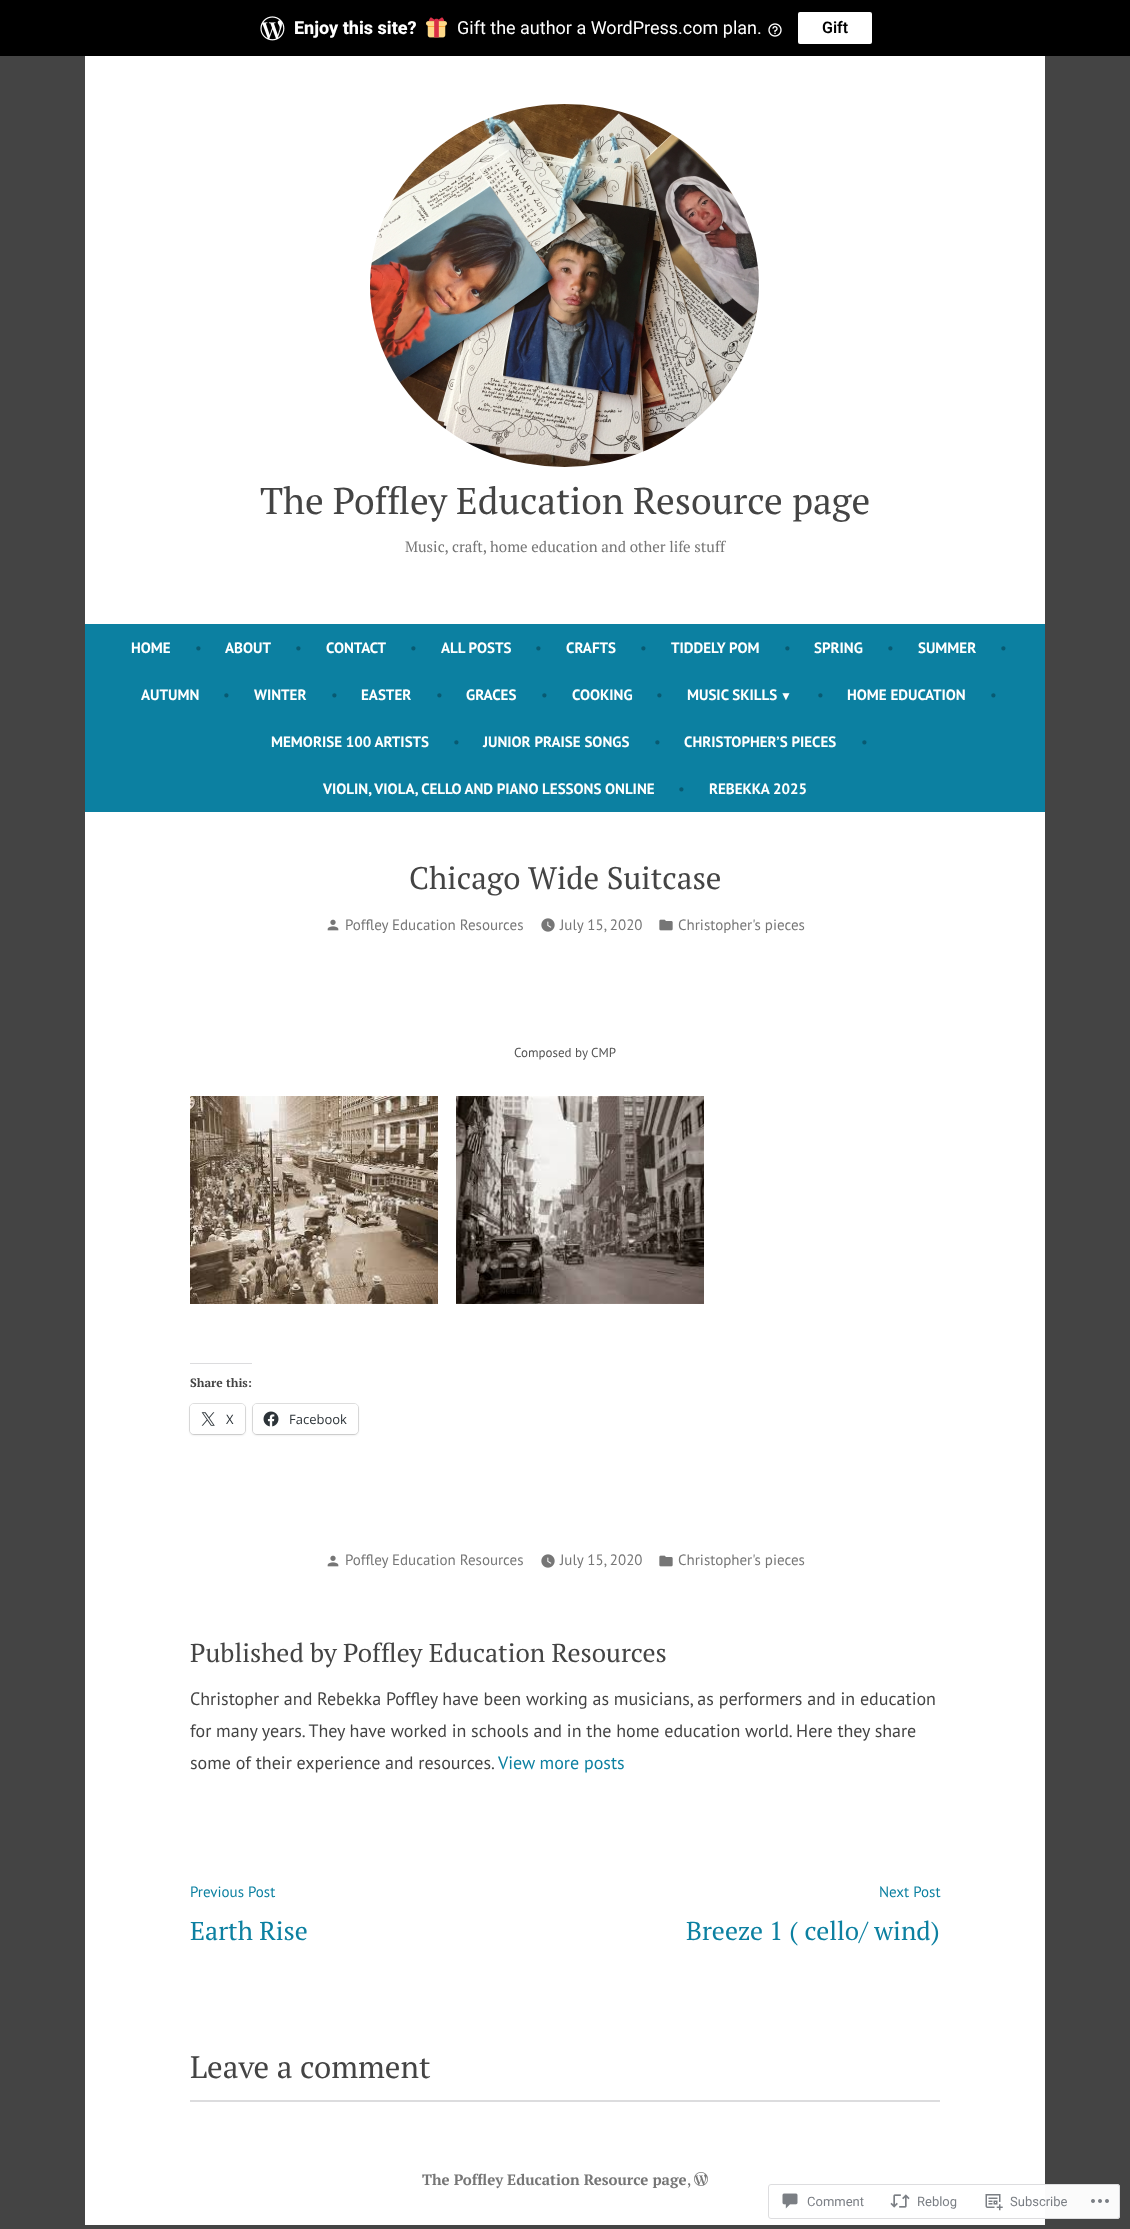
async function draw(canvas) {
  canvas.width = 1130;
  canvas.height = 2229;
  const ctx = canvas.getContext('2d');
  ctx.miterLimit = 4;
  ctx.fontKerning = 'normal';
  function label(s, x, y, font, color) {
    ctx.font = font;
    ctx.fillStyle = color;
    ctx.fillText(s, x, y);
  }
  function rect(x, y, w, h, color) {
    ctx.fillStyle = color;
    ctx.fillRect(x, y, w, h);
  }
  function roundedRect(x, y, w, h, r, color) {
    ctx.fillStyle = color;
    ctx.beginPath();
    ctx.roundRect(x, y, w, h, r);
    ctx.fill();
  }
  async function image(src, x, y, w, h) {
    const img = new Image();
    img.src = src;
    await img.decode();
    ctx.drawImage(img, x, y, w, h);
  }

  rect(0, 0, 1130, 2229, '#444');
  rect(0, 0, 1130, 56, '#000');
  await image('assets/img1.png', 260, 16, 25, 25);
  label('Enjoy this site?', 294, 34, '800 18px Roboto', '#fff');
  await image('assets/img2.png', 426, 17, 21, 21);
  label('Gift the author a WordPress.com plan.', 457, 34, '18px Roboto', '#fff');
  await image('assets/img3.png', 768, 23, 14, 14);
  roundedRect(798, 12, 74, 32, 2, '#fff');
  label('Gift', 822, 33, '600 16px Roboto', '#000');
  rect(85, 56, 960, 2169, '#fff');
  await image('assets/img4.png', 370, 104, 389, 363);
  label('The Poffley Education Resource page', 260, 514, '37.3px PT Serif', '#444');
  label('Music, craft, home education and other life stuff', 405, 552, '15px PT Serif', '#767676');
  rect(85, 624, 960, 188, '#0c80a1');
  label('HOME', 131, 653, 'bold 15px PT Sans', '#fff');
  label('•', 195, 653, '15px PT Sans', '#085a72');
  label('ABOUT', 225, 653, 'bold 15px PT Sans', '#fff');
  label('•', 295, 653, '15px PT Sans', '#085a72');
  label('CONTACT', 326, 653, 'bold 15px PT Sans', '#fff');
  label('•', 410, 653, '15px PT Sans', '#085a72');
  label('ALL POSTS', 441, 653, 'bold 15px PT Sans', '#fff');
  label('•', 535, 653, '15px PT Sans', '#085a72');
  label('CRAFTS', 566, 653, 'bold 15px PT Sans', '#fff');
  label('•', 640, 653, '15px PT Sans', '#085a72');
  label('TIDDELY POM', 671, 653, 'bold 15px PT Sans', '#fff');
  label('•', 784, 653, '15px PT Sans', '#085a72');
  label('SPRING', 814, 653, 'bold 15px PT Sans', '#fff');
  label('•', 887, 653, '15px PT Sans', '#085a72');
  label('SUMMER', 918, 653, 'bold 15px PT Sans', '#fff');
  label('•', 1000, 653, '15px PT Sans', '#085a72');
  label('AUTUMN', 141, 700, 'bold 15px PT Sans', '#fff');
  label('•', 223, 700, '15px PT Sans', '#085a72');
  label('WINTER', 254, 700, 'bold 15px PT Sans', '#fff');
  label('•', 331, 700, '15px PT Sans', '#085a72');
  label('EASTER', 361, 700, 'bold 15px PT Sans', '#fff');
  label('•', 436, 700, '15px PT Sans', '#085a72');
  label('GRACES', 466, 700, 'bold 15px PT Sans', '#fff');
  label('•', 541, 700, '15px PT Sans', '#085a72');
  label('COOKING', 572, 700, 'bold 15px PT Sans', '#fff');
  label('•', 656, 700, '15px PT Sans', '#085a72');
  label('MUSIC SKILLS', 687, 700, 'bold 15px PT Sans', '#fff');
  label('▼', 780, 700, 'bold 12px Liberation Sans', '#fff');
  label('•', 817, 700, '15px PT Sans', '#085a72');
  label('HOME EDUCATION', 847, 700, 'bold 15px PT Sans', '#fff');
  label('•', 990, 700, '15px PT Sans', '#085a72');
  label('MEMORISE 100 ARTISTS', 271, 747, 'bold 15px PT Sans', '#fff');
  label('•', 453, 747, '15px PT Sans', '#085a72');
  label('JUNIOR PRAISE SONGS', 483, 747, 'bold 15px PT Sans', '#fff');
  label('•', 654, 747, '15px PT Sans', '#085a72');
  label('CHRISTOPHER’S PIECES', 684, 747, 'bold 15px PT Sans', '#fff');
  label('•', 861, 747, '15px PT Sans', '#085a72');
  label('VIOLIN, VIOLA, CELLO AND PIANO LESSONS ONLINE', 323, 794, 'bold 15px PT Sans', '#fff');
  label('•', 678, 794, '15px PT Sans', '#085a72');
  label('REBEKKA 2025', 709, 794, 'bold 15px PT Sans', '#fff');
  label('Chicago Wide Suitcase', 409, 889, '31.1px PT Serif', '#444');
  await image('assets/img5.png', 327, 919, 12, 12);
  label('Poffley Education Resources', 345, 930, '15px PT Sans', '#767676');
  await image('assets/img6.png', 541, 918, 14, 14);
  label('July 15, 2020', 560, 930, '15px PT Sans', '#767676');
  await image('assets/img7.png', 659, 919, 14, 12);
  label('Christopher\'s pieces', 678, 930, '15px PT Sans', '#767676');
  label('Composed by CMP', 514, 1057, '13px PT Sans', '#555');
  await image('assets/img8.png', 190, 1096, 248, 208);
  await image('assets/img9.png', 456, 1096, 248, 208);
  rect(190, 1363, 62, 1, '#dcdcde');
  label('Share this:', 190, 1387, 'bold 12px PT Serif', '#444');
  ctx.beginPath();
  ctx.roundRect(189.5, 1403.5, 56, 31, 4.5);
  ctx.strokeStyle = '#e0e0e0';
  ctx.stroke();
  ctx.fillStyle = '#0000001f';
  ctx.filter = 'blur(1px)';
  ctx.beginPath();
  ctx.roundRect(190, 1405, 55, 30, 4);
  ctx.fill();
  ctx.filter = 'none';
  roundedRect(190, 1404, 55, 30, 4, '#fff');
  await image('assets/img10.png', 201, 1412, 14, 14);
  label('X', 226, 1424, '13px Open Sans', '#2c3338');
  ctx.beginPath();
  ctx.roundRect(252.5, 1403.5, 106, 31, 4.5);
  ctx.stroke();
  ctx.fillStyle = '#0000001f';
  ctx.filter = 'blur(1px)';
  ctx.beginPath();
  ctx.roundRect(253, 1405, 105, 30, 4);
  ctx.fill();
  ctx.filter = 'none';
  roundedRect(253, 1404, 105, 30, 4, '#fff');
  await image('assets/img11.png', 263, 1411, 16, 16);
  label('Facebook', 289, 1424, '13px Open Sans', '#2c3338');
  await image('assets/img5.png', 327, 1555, 12, 12);
  label('Poffley Education Resources', 345, 1565, '15px PT Sans', '#767676');
  await image('assets/img6.png', 541, 1554, 14, 14);
  label('July 15, 2020', 560, 1565, '15px PT Sans', '#767676');
  await image('assets/img7.png', 659, 1555, 14, 12);
  label('Christopher\'s pieces', 678, 1565, '15px PT Sans', '#767676');
  label('Published by Poffley Education Resources', 190, 1662, '25.9px PT Serif', '#444');
  label('Christopher and Rebekka Poffley have been working as musicians, as performers and in education', 190, 1705, '18px PT Sans', '#444');
  label('for many years. They have worked in schools and in the home education world. Here they share', 190, 1737, '18px PT Sans', '#444');
  label('some of their experience and resources.', 190, 1769, '18px PT Sans', '#444');
  label('View more posts', 498, 1769, '18px PT Sans', '#0c80a1');
  label('Previous Post', 190, 1897, '15px PT Sans', '#0c80a1');
  label('Earth Rise', 190, 1940, '25.9px PT Serif', '#0c80a1');
  label('Next Post', 879, 1897, '15px PT Sans', '#0c80a1');
  label('Breeze 1 ( cello/ wind)', 686, 1940, '25.9px PT Serif', '#0c80a1');
  label('Leave a comment', 190, 2078, '31.1px PT Serif', '#444');
  rect(190, 2100, 750, 2, '#dcdcde');
  label('The Poffley Education Resource page', 422, 2185, 'bold 15px PT Serif', '#767676');
  label(',', 687, 2185, '15px PT Serif', '#767676');
  await image('assets/img12.png', 694, 2172, 14, 14);
  roundedRect(768, 2184, 352, 35, 3, '#fffffffa');
  ctx.beginPath();
  ctx.roundRect(768.5, 2184.5, 351, 34, 2.5);
  ctx.strokeStyle = '#dcdcdefa';
  ctx.stroke();
  await image('assets/img13.png', 782, 2193, 16, 16);
  label('Comment', 807, 2206, '13px Roboto', '#7b7f85');
  await image('assets/img14.png', 890, 2194, 20, 14);
  label('Reblog', 917, 2206, '13px Roboto', '#7b7f85');
  await image('assets/img15.png', 985, 2194, 18, 17);
  label('Subscribe', 1010, 2206, '13px Roboto', '#7b7f85');
  await image('assets/img16.png', 1091, 2199, 18, 4);
}

draw(document.querySelector('canvas'));
